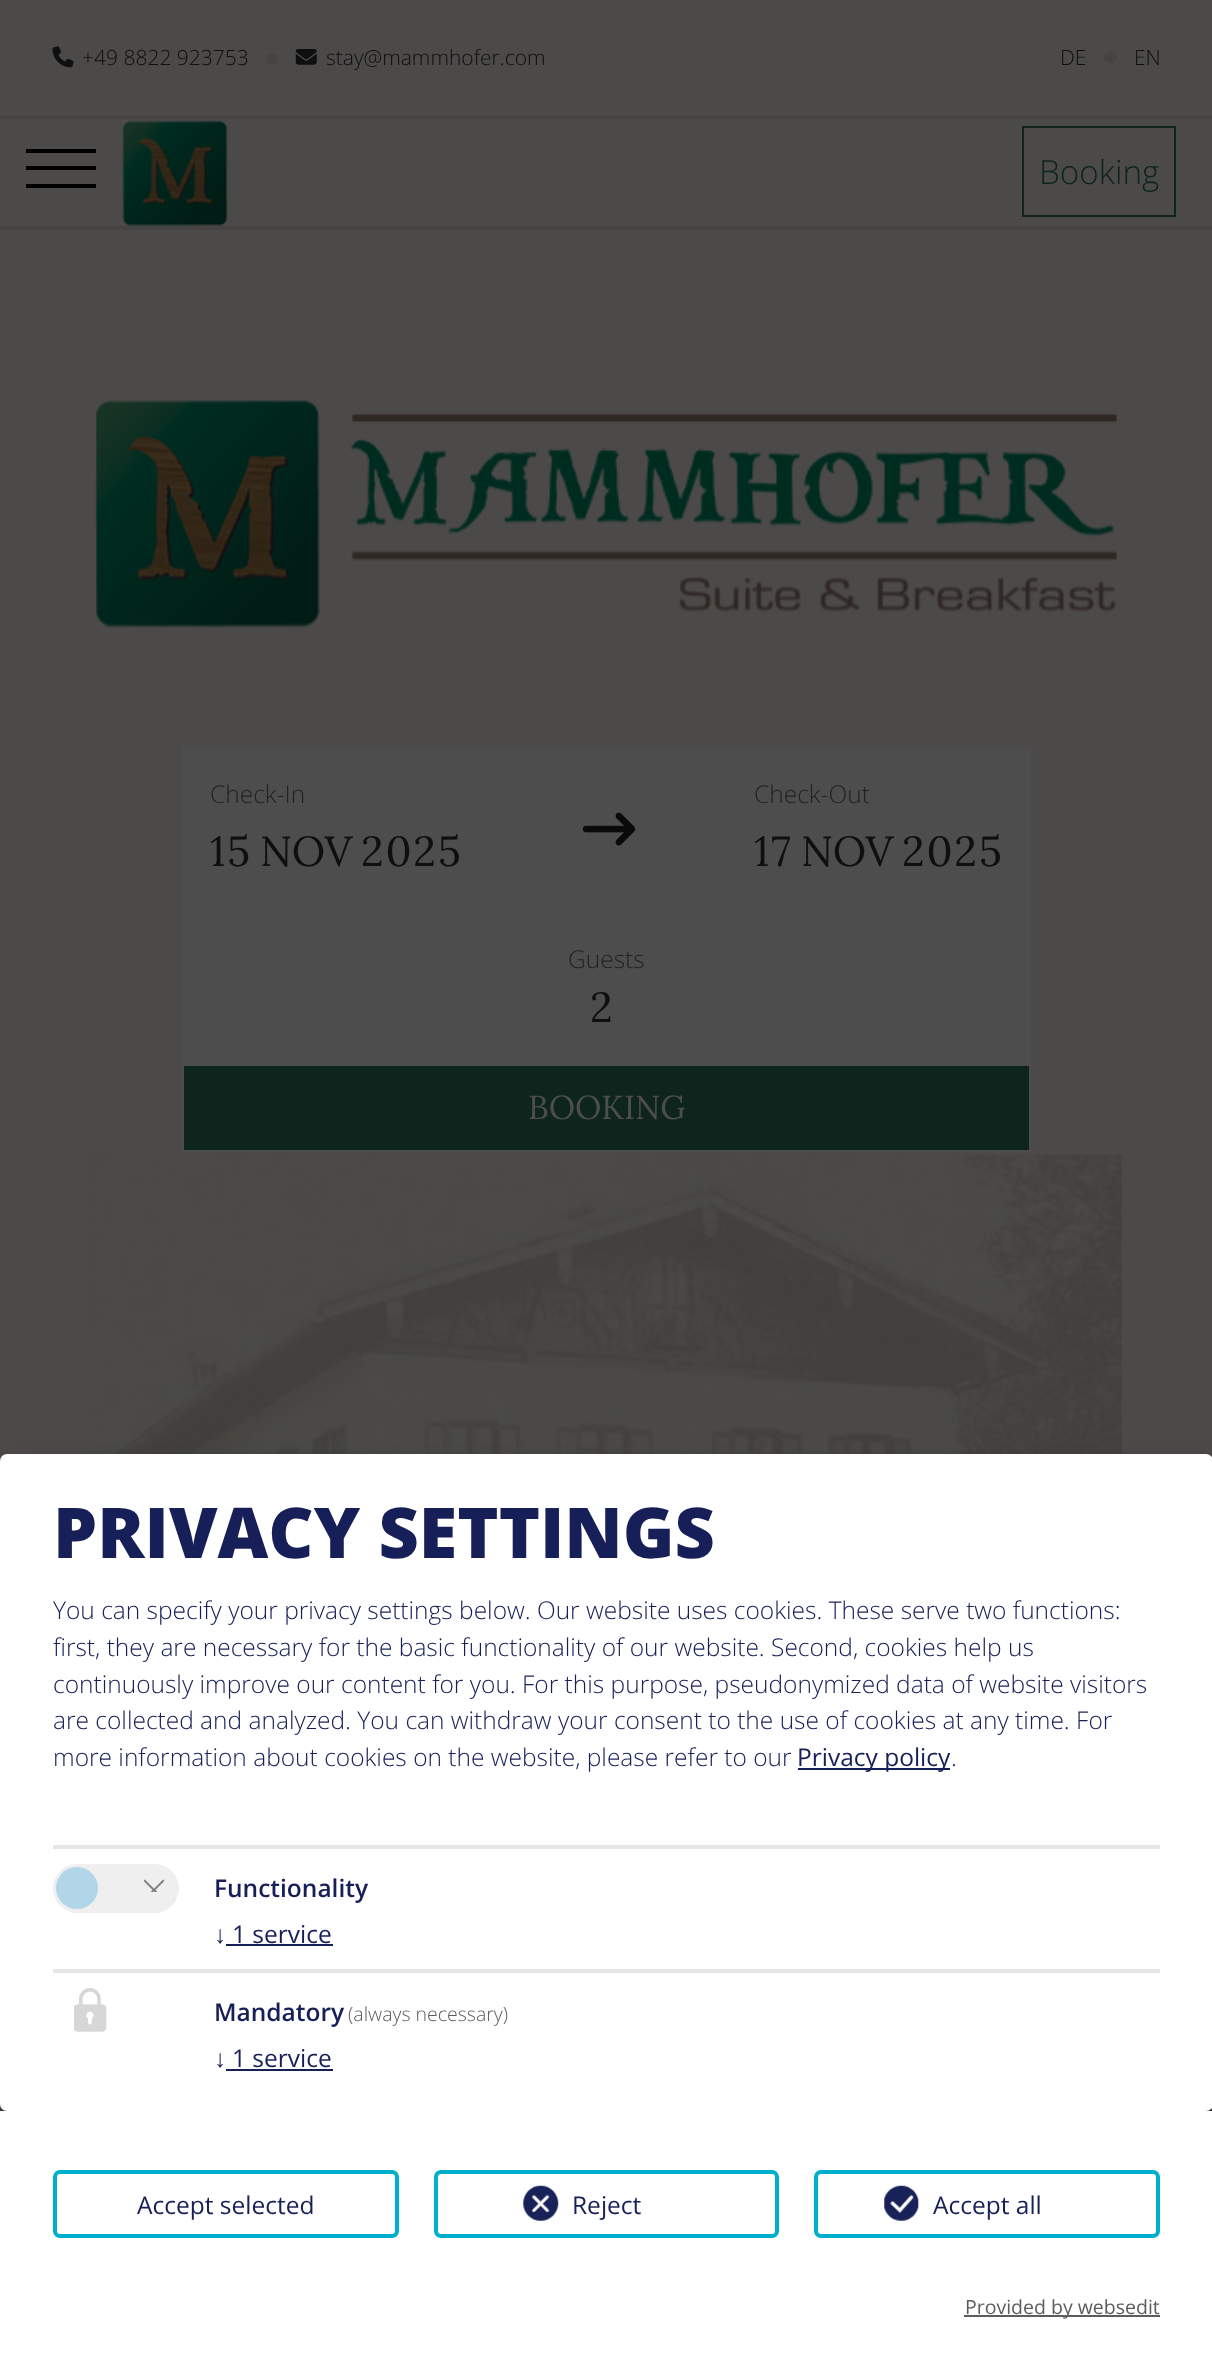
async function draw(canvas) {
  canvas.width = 1212;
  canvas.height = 2372;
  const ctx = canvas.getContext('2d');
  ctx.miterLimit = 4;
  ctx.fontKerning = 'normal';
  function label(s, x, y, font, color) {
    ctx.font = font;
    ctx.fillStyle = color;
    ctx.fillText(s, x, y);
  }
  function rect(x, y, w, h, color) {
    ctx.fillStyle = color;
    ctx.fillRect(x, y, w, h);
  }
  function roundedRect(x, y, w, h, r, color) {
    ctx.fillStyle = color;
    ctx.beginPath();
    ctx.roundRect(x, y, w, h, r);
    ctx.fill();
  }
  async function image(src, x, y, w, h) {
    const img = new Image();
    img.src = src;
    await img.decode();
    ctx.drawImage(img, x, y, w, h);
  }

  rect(0, 0, 1212, 2372, '#4c4a49');
  rect(0, 116, 1212, 3, '#454442');
  await image('assets/img1.png', 52, 46, 22, 22);
  label('+49 8822 923753', 82, 65, '300 21px Open Sans', '#0f0f0f');
  ctx.fillStyle = '#454442';
  ctx.beginPath();
  ctx.arc(272, 59, 6, 0, 2 * Math.PI);
  ctx.fill();
  await image('assets/img2.png', 295, 49, 22, 16);
  label('stay@mammhofer.com', 326, 65, '300 21px Open Sans', '#0f0f0f');
  label('DE', 1060, 65, '300 21px Open Sans', '#0f0f0f');
  roundedRect(1104, 51, 13, 12, 6, '#454442');
  label('EN', 1134, 65, '300 21px Open Sans', '#0f0f0f');
  rect(0, 226, 1212, 4, '#454442');
  rect(26, 184, 70, 4, '#000');
  rect(26, 149, 70, 4, '#000');
  rect(26, 166, 70, 4, '#000');
  await image('assets/img3.png', 122, 120, 106, 106);
  label('Booking', 1039, 184, '300 33.25px Open Sans', '#0d251c');
  rect(1022, 126, 154, 2, '#0d251c');
  rect(1022, 215, 137, 2, '#0d251c');
  rect(1022, 126, 2, 91, '#0d251c');
  rect(1174, 126, 2, 91, '#0d251c');
  rect(1159, 215, 17, 2, '#0d251c');
  await image('assets/img4.png', 95, 400, 1022, 228);
  rect(182, 747, 849, 317, '#4d4d4d');
  label('Check-In', 210, 803, '300 24.5px Open Sans', '#232323');
  ctx.letterSpacing = '2px';
  label('15', 210, 866, '42px Lora', '#0f0f0f');
  ctx.letterSpacing = '0px';
  label('NOV', 260, 866, '42px Lora', '#0f0f0f');
  ctx.letterSpacing = '2px';
  label('2025', 361, 866, '42px Lora', '#0f0f0f');
  await image('assets/img5.png', 582, 812, 54, 34);
  ctx.letterSpacing = '0px';
  label('Check-Out', 754, 803, '300 24.5px Open Sans', '#232323');
  ctx.letterSpacing = '2px';
  label('17', 754, 866, '42px Lora', '#0f0f0f');
  ctx.letterSpacing = '0px';
  label('NOV', 801, 866, '42px Lora', '#0f0f0f');
  ctx.letterSpacing = '2px';
  label('2025', 902, 866, '42px Lora', '#0f0f0f');
  ctx.letterSpacing = '0px';
  label('Guests', 568, 968, '300 24.5px Open Sans', '#232323');
  ctx.letterSpacing = '2px';
  label('2', 590, 1022, '42px Lora', '#0f0f0f');
  ctx.fillStyle = '#0d251c';
  ctx.beginPath();
  ctx.rect(183, 1065, 847, 86);
  ctx.fill();
  ctx.strokeStyle = '#4d4d4d';
  ctx.lineWidth = 2;
  ctx.stroke();
  ctx.letterSpacing = '0px';
  label('BOOKING', 528, 1119, '33.25px Lora', '#4d4d4d');
  await image('assets/img6.png', 91, 1154, 1031, 300);
  ctx.fillStyle = '#00000030';
  ctx.filter = 'blur(9px)';
  ctx.beginPath();
  ctx.roundRect(9, 1463, 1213, 656, 7);
  ctx.fill();
  ctx.filter = 'none';
  ctx.fillStyle = '#00000033';
  ctx.filter = 'blur(5px)';
  ctx.beginPath();
  ctx.roundRect(0, 1461, 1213, 657, 7);
  ctx.fill();
  ctx.filter = 'none';
  roundedRect(0, 1454, 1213, 657, 7, '#fff');
  label('PRIVACY SETTINGS', 53, 1558, '800 70px Open Sans', '#161f57');
  label('You can specify your privacy settings below. Our website uses cookies. These serve two functions:', 53, 1619, '300 24.5px Open Sans', '#161f57');
  label('first, they are necessary for the basic functionality of our website. Second, cookies help us', 53, 1656, '300 24.5px Open Sans', '#161f57');
  label('continuously improve our content for you. For this purpose, pseudonymized data of website visitors', 53, 1693, '300 24.5px Open Sans', '#161f57');
  label('are collected and analyzed. You can withdraw your consent to the use of cookies at any time. For', 53, 1729, '300 24.5px Open Sans', '#161f57');
  label('more information about cookies on the website, please refer to our', 53, 1766, '300 24.5px Open Sans', '#161f57');
  rect(798, 1768, 152, 2, '#161f57');
  label('Privacy policy', 797, 1766, '24.5px Open Sans', '#161f57');
  label('.', 951, 1766, '300 24.5px Open Sans', '#161f57');
  rect(53, 1845, 1107, 4, '#e6e6e6');
  roundedRect(53, 1864, 126, 49, 24.5, '#efefef');
  ctx.fillStyle = '#b1d6e8';
  ctx.beginPath();
  ctx.arc(77, 1888, 21, 0, 2 * Math.PI);
  ctx.fill();
  await image('assets/img7.png', 144, 1879, 21, 13);
  label('Functionality', 214, 1897, '600 24.5px Open Sans', '#161f57');
  label('↓', 214, 1943, '24.5px Liberation Sans', '#161f57');
  label('1 service', 232, 1943, '24.5px Open Sans', '#161f57');
  rect(226, 1944, 107, 2, '#161f57');
  rect(53, 1969, 1107, 4, '#e6e6e6');
  await image('assets/img8.png', 74, 1988, 33, 44);
  label('Mandatory', 214, 2021, '600 24.5px Open Sans', '#161f57');
  label('(always necessary)', 348, 2021, '300 19.5px Open Sans', '#5c5c5c');
  label('↓', 214, 2067, '24.5px Liberation Sans', '#161f57');
  label('1 service', 232, 2067, '24.5px Open Sans', '#161f57');
  rect(226, 2069, 107, 2, '#161f57');
  rect(0, 2111, 1212, 261, '#fff');
  ctx.beginPath();
  ctx.roundRect(55, 2172, 342, 64, 5);
  ctx.strokeStyle = '#00afcb';
  ctx.lineWidth = 4;
  ctx.stroke();
  label('Accept selected', 137, 2214, '24.5px Open Sans', '#161f57');
  ctx.beginPath();
  ctx.roundRect(436, 2172, 341, 64, 5);
  ctx.stroke();
  await image('assets/img9.png', 523, 2185, 36, 36);
  label('Reject', 572, 2214, '24.5px Open Sans', '#161f57');
  ctx.beginPath();
  ctx.roundRect(816, 2172, 342, 64, 5);
  ctx.stroke();
  await image('assets/img10.png', 884, 2185, 36, 36);
  label('Accept all', 933, 2214, '24.5px Open Sans', '#161f57');
  rect(964, 2315, 196, 2, '#5c5c5c');
  label('Provided by websedit', 965, 2314, '19.5px Open Sans', '#5c5c5c');
}

draw(document.querySelector('canvas'));
